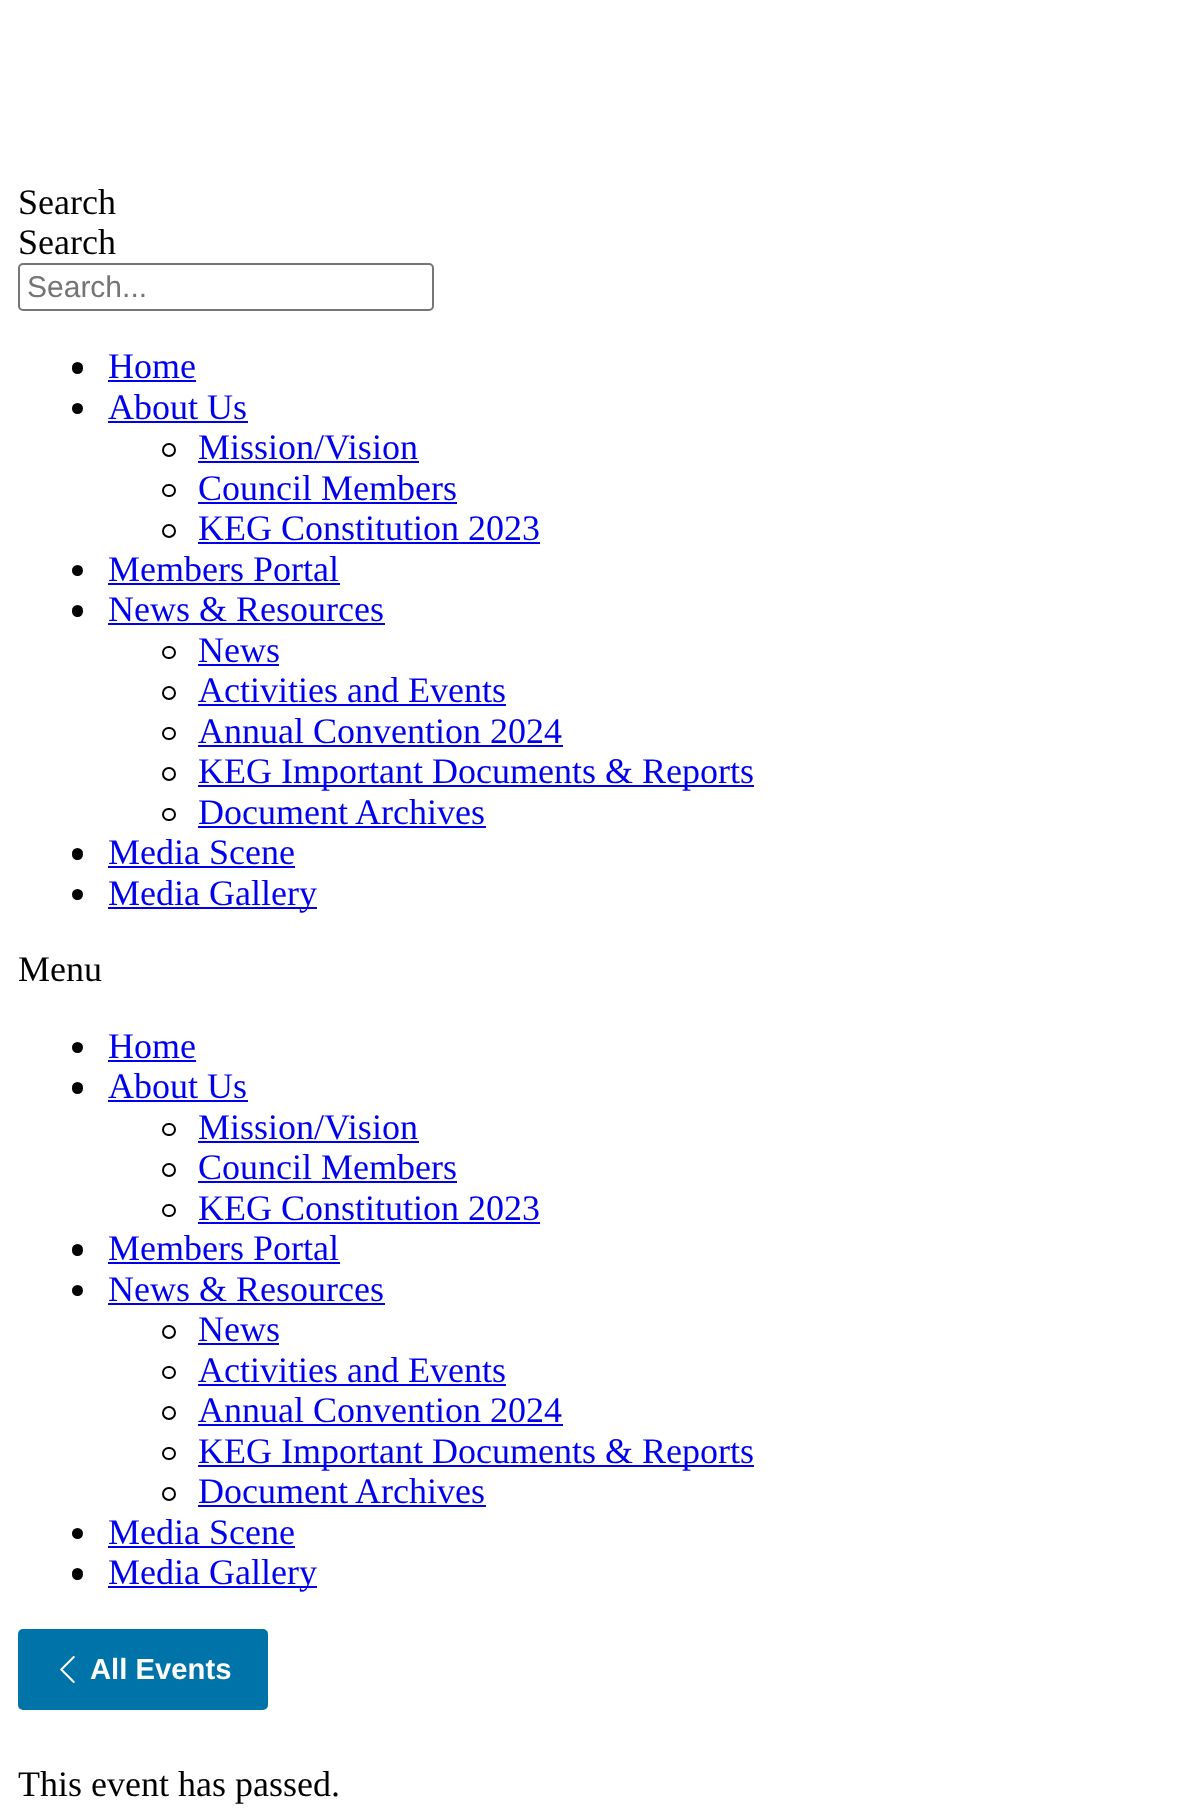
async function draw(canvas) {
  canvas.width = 1182;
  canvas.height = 1816;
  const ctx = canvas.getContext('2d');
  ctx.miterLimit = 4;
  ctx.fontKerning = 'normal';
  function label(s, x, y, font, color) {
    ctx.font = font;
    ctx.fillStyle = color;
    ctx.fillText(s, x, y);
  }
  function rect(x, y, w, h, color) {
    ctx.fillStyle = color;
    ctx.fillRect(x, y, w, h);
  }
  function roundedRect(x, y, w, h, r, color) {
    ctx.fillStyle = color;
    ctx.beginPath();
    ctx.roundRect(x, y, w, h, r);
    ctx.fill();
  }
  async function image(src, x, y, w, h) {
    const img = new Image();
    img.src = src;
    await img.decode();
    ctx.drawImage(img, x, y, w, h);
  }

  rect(0, 0, 1182, 1816, '#fff');
  label('Search', 18, 214, '36px Liberation Serif', '#000');
  label('Search', 18, 254, '36px Liberation Serif', '#000');
  ctx.beginPath();
  ctx.roundRect(19, 264, 414, 46, 4);
  ctx.strokeStyle = '#767676';
  ctx.lineWidth = 2;
  ctx.stroke();
  label('Search...', 27, 297, '30px Liberation Sans', '#757575');
  roundedRect(72, 362, 11, 12, 5.5, '#000');
  label('Home', 108, 378, '36px Liberation Serif', '#00e');
  rect(108, 380, 88, 2, '#00e');
  ctx.fillStyle = '#000';
  ctx.beginPath();
  ctx.arc(77.5, 408.5, 5.5, 0, 2 * Math.PI);
  ctx.fill();
  label('About Us', 108, 419, '36px Liberation Serif', '#00e');
  rect(108, 421, 140, 2, '#00e');
  ctx.beginPath();
  ctx.arc(169, 450, 6, 0, 2 * Math.PI);
  ctx.strokeStyle = '#000';
  ctx.stroke();
  label('Mission/Vision', 198, 459, '36px Liberation Serif', '#00e');
  rect(198, 461, 221, 2, '#00e');
  ctx.beginPath();
  ctx.roundRect(163, 485, 12, 11, 5.5);
  ctx.stroke();
  label('Council Members', 198, 500, '36px Liberation Serif', '#00e');
  rect(198, 502, 259, 2, '#00e');
  ctx.beginPath();
  ctx.arc(169, 531, 6, 0, 2 * Math.PI);
  ctx.stroke();
  label('KEG Constitution 2023', 198, 540, '36px Liberation Serif', '#00e');
  rect(198, 542, 342, 2, '#00e');
  ctx.fillStyle = '#000';
  ctx.beginPath();
  ctx.arc(77.5, 570.5, 5.5, 0, 2 * Math.PI);
  ctx.fill();
  label('Members Portal', 108, 581, '36px Liberation Serif', '#00e');
  rect(108, 583, 232, 2, '#00e');
  roundedRect(72, 605, 11, 12, 5.5, '#000');
  label('News & Resources', 108, 621, '36px Liberation Serif', '#00e');
  rect(108, 623, 277, 2, '#00e');
  ctx.beginPath();
  ctx.roundRect(163, 647, 12, 11, 5.5);
  ctx.stroke();
  label('News', 198, 662, '36px Liberation Serif', '#00e');
  rect(198, 664, 81, 2, '#00e');
  ctx.beginPath();
  ctx.arc(169, 693, 6, 0, 2 * Math.PI);
  ctx.stroke();
  label('Activities and Events', 198, 702, '36px Liberation Serif', '#00e');
  rect(198, 704, 308, 2, '#00e');
  ctx.beginPath();
  ctx.roundRect(163, 728, 12, 11, 5.5);
  ctx.stroke();
  label('Annual Convention 2024', 198, 743, '36px Liberation Serif', '#00e');
  rect(198, 745, 365, 2, '#00e');
  ctx.beginPath();
  ctx.arc(169, 774, 6, 0, 2 * Math.PI);
  ctx.stroke();
  rect(198, 785, 556, 2, '#00e');
  label('KEG Important Documents & Reports', 198, 783, '36px Liberation Serif', '#00e');
  ctx.beginPath();
  ctx.roundRect(163, 809, 12, 11, 5.5);
  ctx.stroke();
  label('Document Archives', 198, 824, '36px Liberation Serif', '#00e');
  rect(198, 826, 288, 2, '#00e');
  roundedRect(72, 848, 11, 12, 5.5, '#000');
  label('Media Scene', 108, 864, '36px Liberation Serif', '#00e');
  rect(108, 866, 187, 2, '#00e');
  ctx.fillStyle = '#000';
  ctx.beginPath();
  ctx.arc(77.5, 894.5, 5.5, 0, 2 * Math.PI);
  ctx.fill();
  rect(108, 907, 209, 2, '#00e');
  label('Media Gallery', 108, 905, '36px Liberation Serif', '#00e');
  label('Menu', 18, 981, '36px Liberation Serif', '#000');
  ctx.beginPath();
  ctx.arc(77.5, 1047.5, 5.5, 0, 2 * Math.PI);
  ctx.fill();
  label('Home', 108, 1058, '36px Liberation Serif', '#00e');
  rect(108, 1060, 88, 2, '#00e');
  roundedRect(72, 1082, 11, 12, 5.5, '#000');
  label('About Us', 108, 1098, '36px Liberation Serif', '#00e');
  rect(108, 1100, 140, 2, '#00e');
  ctx.beginPath();
  ctx.roundRect(163, 1124, 12, 11, 5.5);
  ctx.stroke();
  label('Mission/Vision', 198, 1139, '36px Liberation Serif', '#00e');
  rect(198, 1141, 221, 2, '#00e');
  ctx.beginPath();
  ctx.arc(169, 1170, 6, 0, 2 * Math.PI);
  ctx.stroke();
  label('Council Members', 198, 1179, '36px Liberation Serif', '#00e');
  rect(198, 1181, 259, 2, '#00e');
  ctx.beginPath();
  ctx.roundRect(163, 1205, 12, 11, 5.5);
  ctx.stroke();
  label('KEG Constitution 2023', 198, 1220, '36px Liberation Serif', '#00e');
  rect(198, 1222, 342, 2, '#00e');
  roundedRect(72, 1244, 11, 12, 5.5, '#000');
  label('Members Portal', 108, 1260, '36px Liberation Serif', '#00e');
  rect(108, 1262, 232, 2, '#00e');
  ctx.fillStyle = '#000';
  ctx.beginPath();
  ctx.arc(77.5, 1290.5, 5.5, 0, 2 * Math.PI);
  ctx.fill();
  label('News & Resources', 108, 1301, '36px Liberation Serif', '#00e');
  rect(108, 1303, 277, 2, '#00e');
  ctx.beginPath();
  ctx.arc(169, 1332, 6, 0, 2 * Math.PI);
  ctx.stroke();
  label('News', 198, 1341, '36px Liberation Serif', '#00e');
  rect(198, 1343, 81, 2, '#00e');
  ctx.beginPath();
  ctx.roundRect(163, 1367, 12, 11, 5.5);
  ctx.stroke();
  label('Activities and Events', 198, 1382, '36px Liberation Serif', '#00e');
  rect(198, 1384, 308, 2, '#00e');
  ctx.beginPath();
  ctx.arc(169, 1413, 6, 0, 2 * Math.PI);
  ctx.stroke();
  label('Annual Convention 2024', 198, 1422, '36px Liberation Serif', '#00e');
  rect(198, 1424, 365, 2, '#00e');
  ctx.beginPath();
  ctx.roundRect(163, 1448, 12, 11, 5.5);
  ctx.stroke();
  rect(198, 1465, 556, 2, '#00e');
  label('KEG Important Documents & Reports', 198, 1463, '36px Liberation Serif', '#00e');
  ctx.beginPath();
  ctx.arc(169, 1494, 6, 0, 2 * Math.PI);
  ctx.stroke();
  label('Document Archives', 198, 1503, '36px Liberation Serif', '#00e');
  rect(198, 1505, 288, 2, '#00e');
  ctx.fillStyle = '#000';
  ctx.beginPath();
  ctx.arc(77.5, 1533.5, 5.5, 0, 2 * Math.PI);
  ctx.fill();
  label('Media Scene', 108, 1544, '36px Liberation Serif', '#00e');
  rect(108, 1546, 187, 2, '#00e');
  roundedRect(72, 1568, 11, 12, 5.5, '#000');
  rect(108, 1586, 209, 2, '#00e');
  label('Media Gallery', 108, 1584, '36px Liberation Serif', '#00e');
  roundedRect(18, 1629, 250, 81, 5, '#0073a8');
  await image('assets/img1.png', 60, 1656, 15, 27);
  label('All Events', 90, 1679, 'bold 29.25px Liberation Sans', '#fff');
  label('This event has passed.', 18, 1796, '36px Liberation Serif', '#000');
}

draw(document.querySelector('canvas'));
